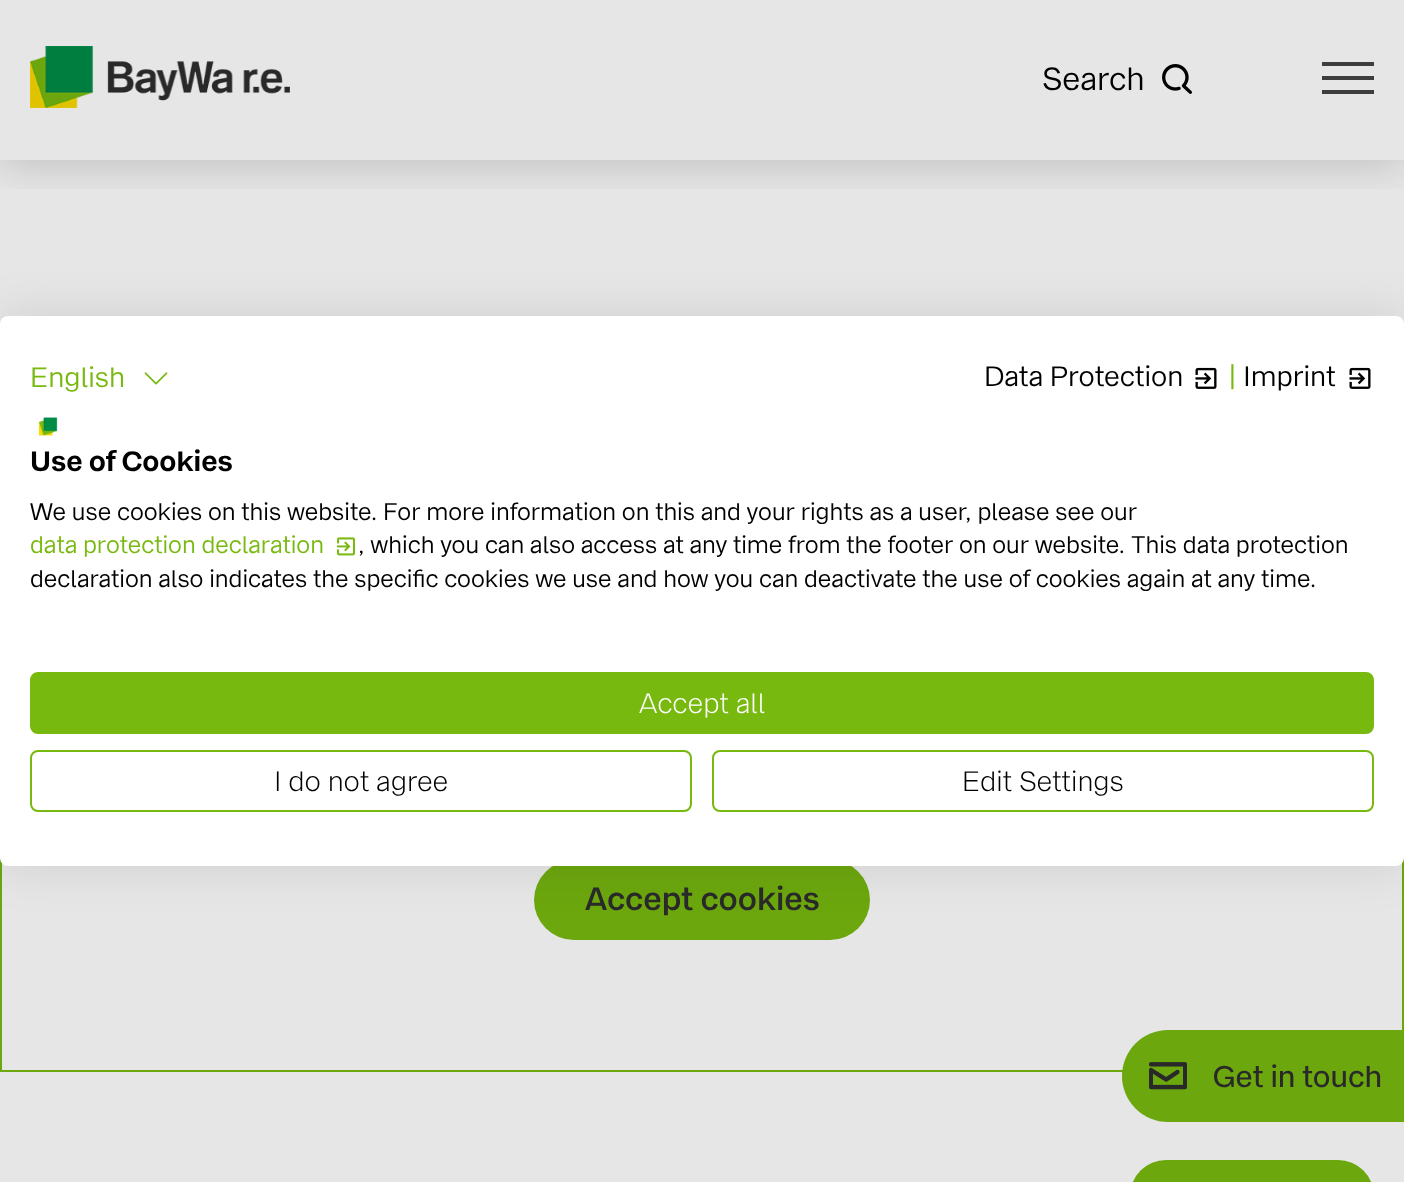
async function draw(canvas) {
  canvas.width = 1404;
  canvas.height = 1182;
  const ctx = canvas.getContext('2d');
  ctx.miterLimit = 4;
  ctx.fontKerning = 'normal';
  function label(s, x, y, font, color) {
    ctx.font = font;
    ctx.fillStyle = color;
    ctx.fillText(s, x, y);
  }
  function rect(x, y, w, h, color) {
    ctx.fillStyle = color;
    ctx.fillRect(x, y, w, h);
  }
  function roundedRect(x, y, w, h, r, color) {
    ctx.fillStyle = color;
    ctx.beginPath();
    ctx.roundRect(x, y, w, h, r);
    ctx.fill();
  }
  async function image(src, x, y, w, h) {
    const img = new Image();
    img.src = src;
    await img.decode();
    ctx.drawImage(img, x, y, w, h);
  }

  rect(0, 0, 1404, 1182, '#e6e6e6');
  ctx.save();
  ctx.beginPath();
  ctx.rect(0, 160, 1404, 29);
  ctx.clip();
  ctx.fillStyle = '#00000029';
  ctx.filter = 'blur(20px)';
  ctx.beginPath();
  ctx.rect(0, 6, 1404, 160);
  ctx.fill();
  ctx.filter = 'none';
  ctx.restore();
  await image('assets/img1.png', 30, 46, 260, 62);
  label('Search', 1042, 90, '32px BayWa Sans', '#000');
  await image('assets/img2.png', 1162, 64, 30, 30);
  rect(1322, 62, 52, 4, '#3d3d3d');
  rect(1322, 76, 52, 4, '#3d3d3d');
  rect(1322, 90, 52, 4, '#3d3d3d');
  ctx.strokeStyle = '#6ca70e';
  ctx.lineWidth = 2;
  ctx.strokeRect(1, 549, 1402, 522);
  roundedRect(534, 860, 336, 80, 40, '#6ca70e');
  ctx.fillStyle = '#0000001a';
  ctx.filter = 'blur(24px)';
  ctx.beginPath();
  ctx.roundRect(0, 316, 1404, 550, 8);
  ctx.fill();
  ctx.filter = 'none';
  roundedRect(0, 316, 1404, 550, 8, '#fff');
  label('English', 30, 387, '28px BayWa Sans', '#78b90f');
  await image('assets/img3.png', 144, 372, 24, 13);
  label('Data Protection', 984, 386, '28px BayWa Sans', '#000');
  await image('assets/img4.png', 1195, 367, 22, 22);
  label('|', 1228, 386, '28px BayWa Sans', '#78b90f');
  label('Imprint', 1243, 386, '28px BayWa Sans', '#000');
  await image('assets/img4.png', 1349, 367, 22, 22);
  await image('assets/img5.png', 38, 417, 20, 19);
  label('Use of Cookies', 30, 471, 'bold 28px BayWa Sans', '#000');
  label('We use cookies on this website. For more information on this and your rights as a user, please see our', 30, 520, '24px BayWa Sans', '#000');
  label('data protection declaration', 30, 553, '24px BayWa Sans', '#78b90f');
  await image('assets/img6.png', 337, 537, 18, 19);
  label(', which you can also access at any time from the footer on our website. This data protection', 358, 553, '24px BayWa Sans', '#000');
  label('declaration also indicates the specific cookies we use and how you can deactivate the use of cookies again at any time.', 30, 587, '24px BayWa Sans', '#000');
  ctx.fillStyle = '#78b90f';
  ctx.beginPath();
  ctx.roundRect(31, 673, 1342, 60, 7);
  ctx.fill();
  ctx.strokeStyle = '#78b90f';
  ctx.stroke();
  label('Accept all', 639, 713, '300 28px BayWa Sans', '#fff');
  ctx.beginPath();
  ctx.roundRect(31, 751, 660, 60, 7);
  ctx.stroke();
  label('I do not agree', 274, 791, '300 28px BayWa Sans', '#000');
  ctx.beginPath();
  ctx.roundRect(713, 751, 660, 60, 7);
  ctx.stroke();
  label('Edit Settings', 962, 791, '300 28px BayWa Sans', '#000');
  label('Accept cookies', 585, 910, '600 32px BayWa Sans', '#292929');
  roundedRect(1130, 1160, 244, 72, 50, '#6ca70e');
  ctx.beginPath();
  ctx.roundRect(1122, 1030, 282, 92, [46, 0, 0, 46]);
  ctx.fill();
  await image('assets/img7.png', 1149, 1062, 38, 28);
  label('Get in touch', 1213, 1087, '500 30px BayWa Sans', '#292929');
}

draw(document.querySelector('canvas'));
